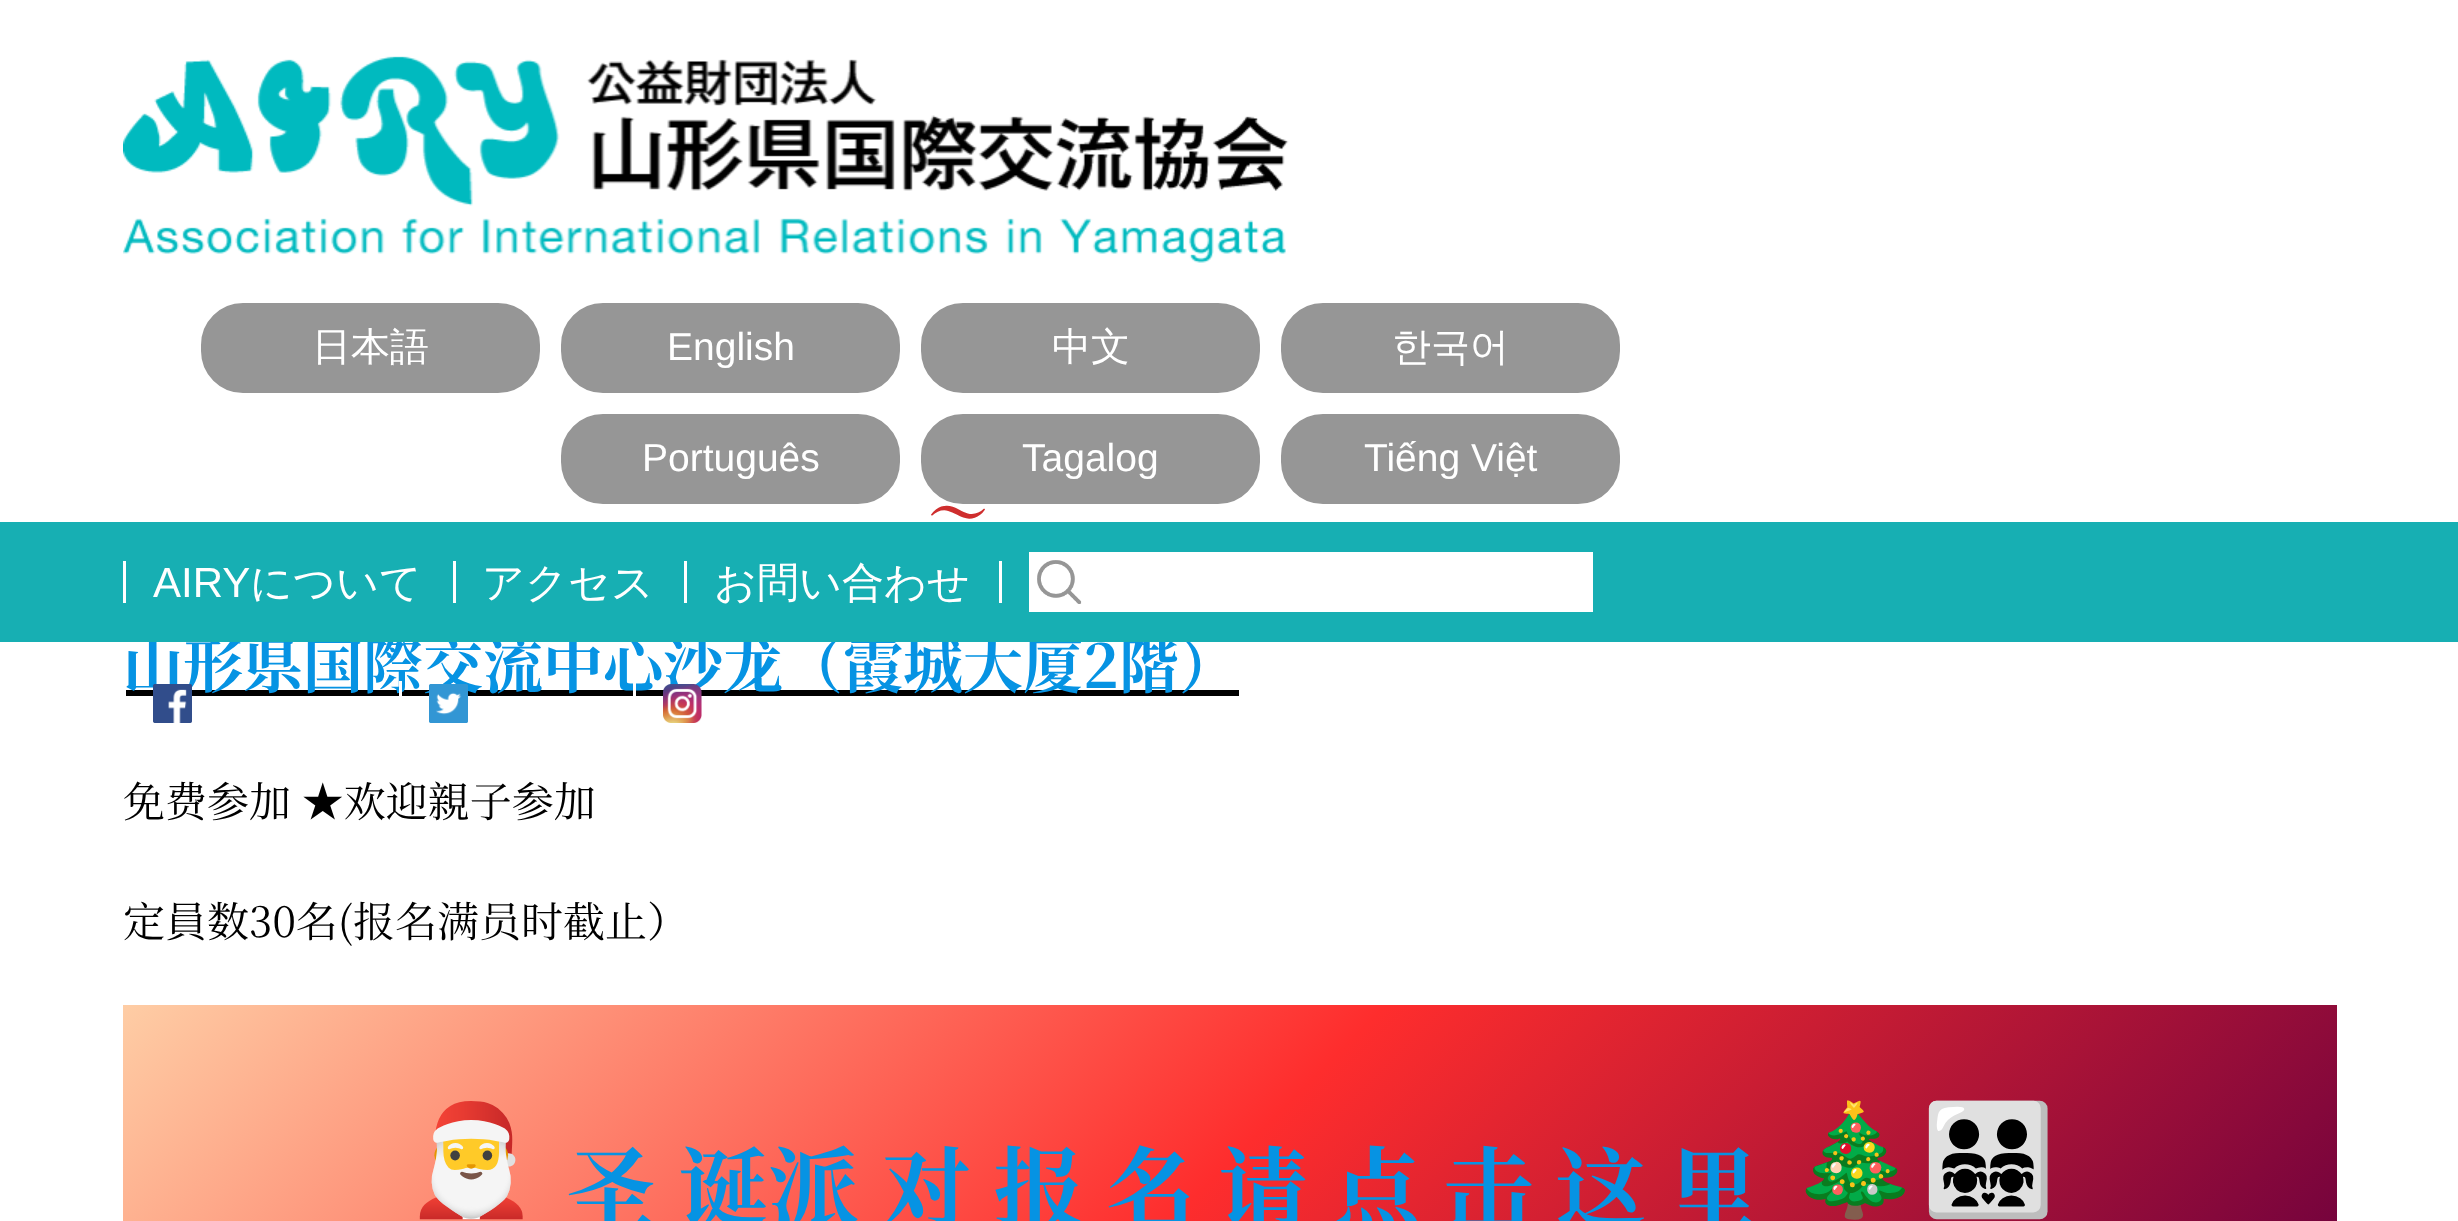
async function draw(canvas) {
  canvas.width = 2458;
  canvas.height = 1221;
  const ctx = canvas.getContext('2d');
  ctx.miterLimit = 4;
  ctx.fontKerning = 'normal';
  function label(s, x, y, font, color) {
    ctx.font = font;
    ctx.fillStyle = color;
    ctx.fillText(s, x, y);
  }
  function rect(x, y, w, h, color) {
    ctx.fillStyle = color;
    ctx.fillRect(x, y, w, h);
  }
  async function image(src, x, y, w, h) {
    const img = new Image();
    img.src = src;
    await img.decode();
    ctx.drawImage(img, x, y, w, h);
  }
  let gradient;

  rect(0, 0, 2458, 1221, '#fff');
  await image('assets/img1.png', 123, 56, 1166, 207);
  ctx.fillStyle = '#969696';
  ctx.beginPath();
  ctx.roundRect(199.5, 301.5, 342, 93, 43.5);
  ctx.fill();
  ctx.strokeStyle = '#fff';
  ctx.lineWidth = 3;
  ctx.stroke();
  label('日本語', 312, 360, '500 39px WenQuanYi Zen Hei', '#fff');
  ctx.fillStyle = '#969696';
  ctx.beginPath();
  ctx.roundRect(559.5, 301.5, 342, 93, 43.5);
  ctx.fill();
  ctx.stroke();
  label('English', 667, 360, '39px Liberation Sans', '#fff');
  ctx.fillStyle = '#969696';
  ctx.beginPath();
  ctx.roundRect(919.5, 301.5, 342, 93, 43.5);
  ctx.fill();
  ctx.stroke();
  label('中文', 1052, 360, '500 39px WenQuanYi Zen Hei', '#fff');
  ctx.fillStyle = '#969696';
  ctx.beginPath();
  ctx.roundRect(1279.5, 301.5, 342, 93, 43.5);
  ctx.fill();
  ctx.stroke();
  label('한국어', 1392, 360, '500 39px WenQuanYi Zen Hei', '#fff');
  ctx.fillStyle = '#969696';
  ctx.beginPath();
  ctx.roundRect(559.5, 412.5, 342, 93, 43.5);
  ctx.fill();
  ctx.stroke();
  label('Português', 642, 471, '39px Liberation Sans', '#fff');
  label('～', 928, 535, 'bold 60px Noto Serif SC', '#cf2e2e');
  ctx.fillStyle = '#969696';
  ctx.beginPath();
  ctx.roundRect(919.5, 412.5, 342, 93, 43.5);
  ctx.fill();
  ctx.stroke();
  label('Tagalog', 1022, 471, '39px Liberation Sans', '#fff');
  ctx.fillStyle = '#969696';
  ctx.beginPath();
  ctx.roundRect(1279.5, 412.5, 342, 93, 43.5);
  ctx.fill();
  ctx.stroke();
  label('Tiếng Việt', 1364, 471, '39px Liberation Sans', '#fff');
  rect(123, 690, 1116, 6, '#000');
  label('山形県国際交流中心沙龙（霞城大厦2階）', 123, 688, 'bold 60px Noto Serif SC', '#0693e3');
  rect(0, 522, 2458, 120, '#17afb3');
  rect(123, 561, 3, 42, '#fff');
  label('AIRY', 153, 597, '42px Liberation Sans', '#fff');
  label('について', 250, 597, '500 42px WenQuanYi Zen Hei', '#fff');
  rect(453, 561, 3, 42, '#fff');
  label('アクセス', 482, 597, '500 42px WenQuanYi Zen Hei', '#fff');
  rect(684, 561, 3, 42, '#fff');
  label('お問い合わせ', 714, 597, '500 42px WenQuanYi Zen Hei', '#fff');
  rect(999, 561, 3, 42, '#fff');
  rect(1029, 552, 564, 60, '#fff');
  await image('assets/img2.png', 1037, 560, 45, 44);
  rect(123, 690, 3, 6, '#fff');
  await image('assets/img3.png', 153, 684, 39, 39);
  rect(399, 681, 3, 15, '#fff');
  await image('assets/img4.png', 429, 684, 39, 39);
  rect(633, 681, 3, 15, '#fff');
  await image('assets/img5.png', 663, 684, 39, 39);
  label('免费参加 ★欢迎親子参加', 123, 817, '42px Noto Serif SC', '#000');
  label('定員数30名(报名满员时截止）', 123, 937, '42px Noto Serif SC', '#000');
  gradient = ctx.createLinearGradient(598, 530, 1862, 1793);
  gradient.addColorStop(0, '#fecda5');
  gradient.addColorStop(0.5, '#fe2d2d');
  gradient.addColorStop(1, '#6b003e');
  ctx.fillStyle = gradient;
  ctx.fillRect(123, 1005, 2214, 216);
  label('🎅', 404, 1197, '108px Noto Color Emoji', '#000');
  label('圣 诞派 对 报 名 请 点 击 这 里', 566, 1222, 'bold 90px Noto Serif SC', '#0693e3');
  label('🎄👨‍👨‍👧‍👧', 1787, 1197, '108px Noto Color Emoji', '#000');
}

draw(document.querySelector('canvas'));
